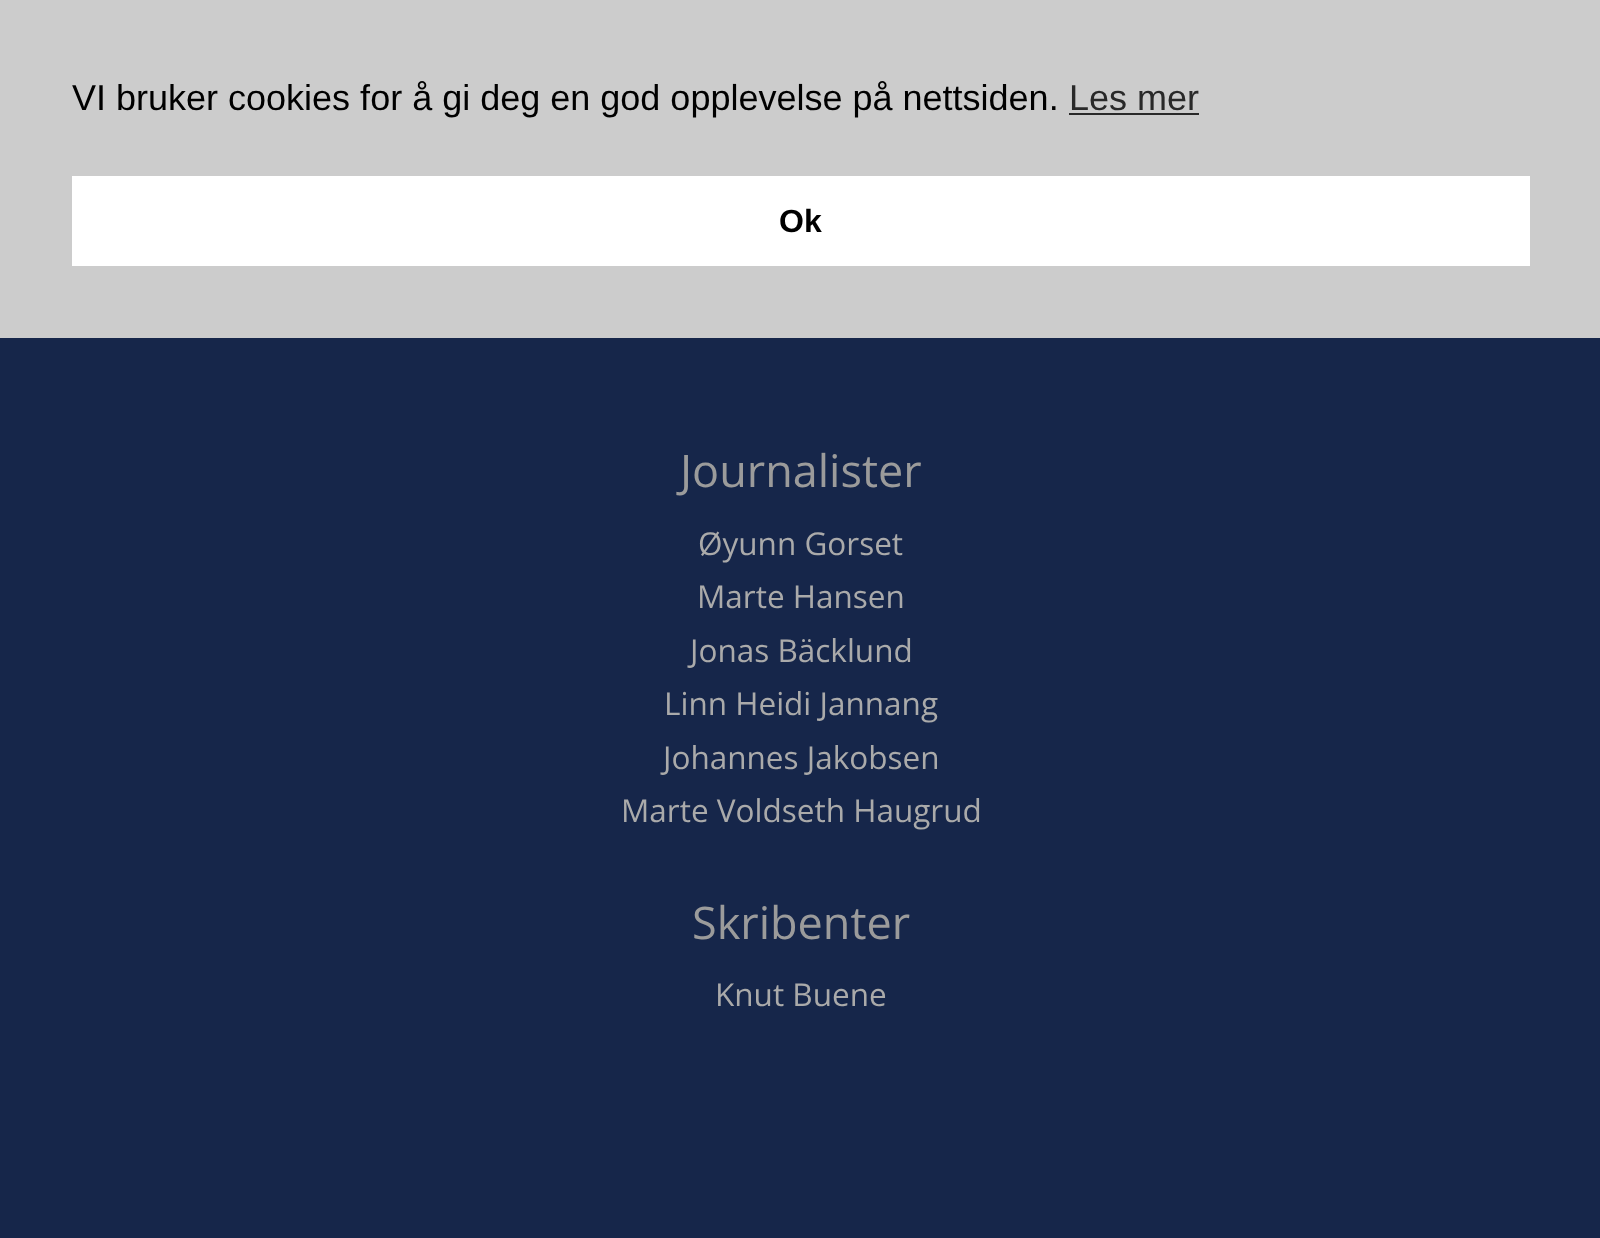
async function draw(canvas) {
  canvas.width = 1600;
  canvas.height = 1238;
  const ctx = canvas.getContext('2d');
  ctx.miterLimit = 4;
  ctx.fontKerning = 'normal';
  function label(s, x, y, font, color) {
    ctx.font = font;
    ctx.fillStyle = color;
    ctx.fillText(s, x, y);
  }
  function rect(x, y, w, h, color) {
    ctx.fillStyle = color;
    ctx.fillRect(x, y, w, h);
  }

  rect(0, 0, 1600, 1238, '#16264a');
  rect(0, 0, 1600, 338, '#ccc');
  label('VI bruker cookies for å gi deg en god opplevelse på nettsiden.', 72, 110, '36px Liberation Sans', '#000');
  label('Les mer', 1069, 110, '36px Liberation Sans', '#292929');
  rect(1069, 113, 130, 2, '#292929');
  rect(72, 176, 1458, 90, '#fff');
  label('Ok', 779, 232, 'bold 32px Liberation Sans', '#000');
  label('Journalister', 680, 487, '45px Open Sans', '#9b9b9b');
  label('Øyunn Gorset', 698, 555, '31.5px Open Sans', '#aaa');
  label('Marte Hansen', 697, 608, '31.5px Open Sans', '#aaa');
  label('Jonas Bäcklund', 690, 662, '31.5px Open Sans', '#aaa');
  label('Linn Heidi Jannang', 664, 715, '31.5px Open Sans', '#aaa');
  label('Johannes Jakobsen', 663, 769, '31.5px Open Sans', '#aaa');
  label('Marte Voldseth Haugrud', 621, 822, '31.5px Open Sans', '#aaa');
  label('Skribenter', 692, 939, '45px Open Sans', '#9b9b9b');
  label('Knut Buene', 715, 1006, '31.5px Open Sans', '#aaa');
}

draw(document.querySelector('canvas'));
